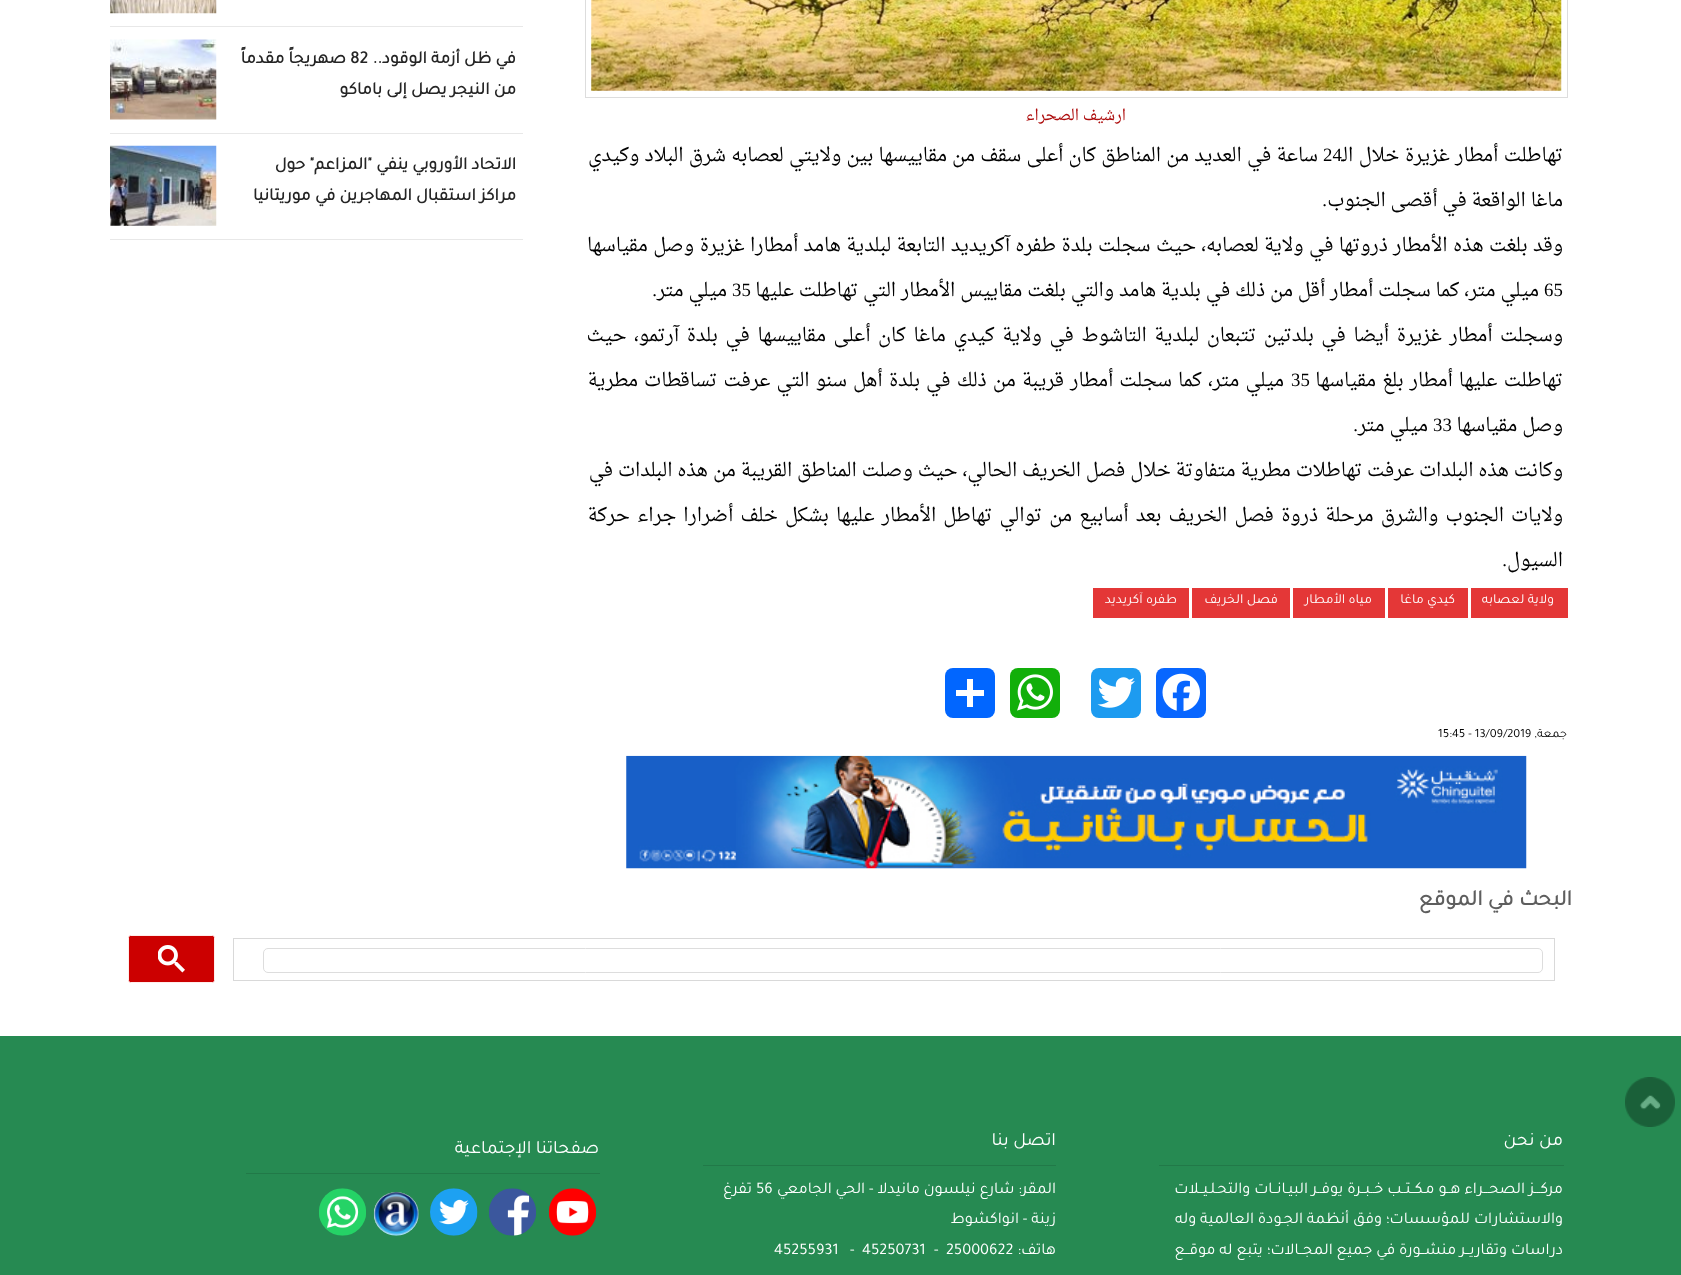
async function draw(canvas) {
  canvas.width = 1681;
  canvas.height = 1275;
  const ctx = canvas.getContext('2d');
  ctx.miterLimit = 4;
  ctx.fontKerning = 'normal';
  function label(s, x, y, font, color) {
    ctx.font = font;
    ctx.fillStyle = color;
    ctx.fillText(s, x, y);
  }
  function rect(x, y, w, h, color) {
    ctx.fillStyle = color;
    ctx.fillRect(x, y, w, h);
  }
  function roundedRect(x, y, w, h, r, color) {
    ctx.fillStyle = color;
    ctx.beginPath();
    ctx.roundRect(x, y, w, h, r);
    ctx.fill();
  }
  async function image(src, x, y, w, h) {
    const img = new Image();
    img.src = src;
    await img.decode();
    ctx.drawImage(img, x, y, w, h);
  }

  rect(0, 0, 1681, 1275, '#fff');
  ctx.strokeStyle = '#ddd';
  ctx.strokeRect(585.5, -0.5, 982, 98);
  await image('assets/img1.png', 591, 0, 971, 91);
  ctx.direction = 'rtl';
  label('ارشيف الصحراء', 1126, 120, '15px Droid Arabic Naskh', '#ad0c0c');
  ctx.wordSpacing = '0.5px';
  label('تهاطلت أمطار غزيرة خلال الـ', 1563, 161, '18.75px Droid Arabic Naskh', '#000');
  ctx.wordSpacing = '0px';
  ctx.direction = 'ltr';
  label('24', 1323, 161, '18.75px Liberation Serif', '#000');
  ctx.wordSpacing = '0.25px';
  ctx.direction = 'rtl';
  label('ساعة في العديد من المناطق كان أعلى سقف من مقاييسها بين ولايتي لعصابه شرق البلاد وكيدي', 1318, 161, '18.75px Droid Arabic Naskh', '#000');
  ctx.wordSpacing = '0px';
  label('ماغا الواقعة في أقصى الجنوب', 1563, 206, '18.75px Droid Arabic Naskh', '#000');
  label('.', 1327, 206, '18.75px Liberation Serif', '#000');
  ctx.wordSpacing = '0.5px';
  label('وقد بلغت هذه الأمطار ذروتها في ولاية لعصابه، حيث سجلت بلدة طفره آكريديد التابعة لبلدية هامد أمطارا غزيرة وصل مقياسها', 1563, 251, '18.75px Droid Arabic Naskh', '#000');
  ctx.wordSpacing = '0px';
  ctx.direction = 'ltr';
  label('65', 1544, 296, '18.75px Liberation Serif', '#000');
  ctx.direction = 'rtl';
  label('ميلي متر، كما سجلت أمطار أقل من ذلك في بلدية هامد والتي بلغت مقاييس الأمطار التي تهاطلت عليها', 1539, 296, '18.75px Droid Arabic Naskh', '#000');
  ctx.direction = 'ltr';
  label('35', 732, 296, '18.75px Liberation Serif', '#000');
  ctx.direction = 'rtl';
  label('ميلي متر', 727, 296, '18.75px Droid Arabic Naskh', '#000');
  label('.', 657, 296, '18.75px Liberation Serif', '#000');
  ctx.wordSpacing = '2.75px';
  label('وسجلت أمطار غزيرة أيضا في بلدتين تتبعان لبلدية التاشوط في ولاية كيدي ماغا كان أعلى مقاييسها في بلدة آرتمو، حيث', 1563, 341, '18.75px Droid Arabic Naskh', '#000');
  ctx.wordSpacing = '1.25px';
  label('تهاطلت عليها أمطار بلغ مقياسها', 1563, 386, '18.75px Droid Arabic Naskh', '#000');
  ctx.wordSpacing = '0px';
  ctx.direction = 'ltr';
  label('35', 1291, 386, '18.75px Liberation Serif', '#000');
  ctx.wordSpacing = '1.25px';
  ctx.direction = 'rtl';
  label('ميلي متر، كما سجلت أمطار قريبة من ذلك في بلدة أهل سنو التي عرفت تساقطات مطرية', 1284, 386, '18.75px Droid Arabic Naskh', '#000');
  ctx.wordSpacing = '0px';
  label('وصل مقياسها', 1563, 431, '18.75px Droid Arabic Naskh', '#000');
  ctx.direction = 'ltr';
  label('33', 1433, 431, '18.75px Liberation Serif', '#000');
  ctx.direction = 'rtl';
  label('ميلي متر', 1428, 431, '18.75px Droid Arabic Naskh', '#000');
  label('.', 1358, 431, '18.75px Liberation Serif', '#000');
  label('وكانت هذه البلدات عرفت تهاطلات مطرية متفاوتة خلال فصل الخريف الحالي، حيث وصلت المناطق القريبة من هذه البلدات في', 1563, 476, '18.75px Droid Arabic Naskh', '#000');
  ctx.wordSpacing = '2.25px';
  label('ولايات الجنوب والشرق مرحلة ذروة فصل الخريف بعد أسابيع من توالي تهاطل الأمطار عليها بشكل خلف أضرارا جراء حركة', 1563, 521, '18.75px Droid Arabic Naskh', '#000');
  ctx.wordSpacing = '0px';
  label('السيول', 1563, 566, '18.75px Droid Arabic Naskh', '#000');
  label('.', 1507, 566, '18.75px Liberation Serif', '#000');
  rect(1471, 588, 97, 30, '#e43737');
  label('ولاية لعصابه', 1554, 603, '13.75px Tajawal', '#fff');
  rect(1388, 588, 80, 30, '#e43737');
  label('كيدي ماغا', 1455, 603, '13.75px Tajawal', '#fff');
  rect(1293, 588, 92, 30, '#e43737');
  label('مياه الأمطار', 1372, 603, '13.75px Tajawal', '#fff');
  rect(1192, 588, 98, 30, '#e43737');
  label('فصل الخريف', 1278, 603, '13.75px Tajawal', '#fff');
  rect(1093, 588, 96, 30, '#e43737');
  label('طفره آكريديد', 1177, 603, '13.75px Tajawal', '#fff');
  roundedRect(1156, 668, 50, 50, 8, '#0866ff');
  await image('assets/img2.png', 1162, 673, 38, 39);
  roundedRect(1091, 668, 50, 50, 8, '#1d9bf0');
  await image('assets/img3.png', 1097, 677, 38, 31);
  roundedRect(1010, 668, 50, 50, 8, '#12af0a');
  await image('assets/img4.png', 1017, 674, 36, 37);
  roundedRect(945, 668, 50, 50, 8, '#0166ff');
  rect(967, 679, 6, 28, '#fff');
  rect(956, 690, 28, 6, '#fff');
  label('جمعة,', 1567, 737, '12.5px Tajawal', '#000');
  ctx.direction = 'ltr';
  label('15:45 - 13/09/2019', 1438, 737, '12.5px Tajawal', '#000');
  await image('assets/img5.png', 626, 755, 901, 114);
  rect(110, 26, 413, 1, '#e8e8e8');
  await image('assets/img6.png', 110, 0, 107, 14);
  rect(110, 133, 413, 1, '#e8e8e8');
  ctx.direction = 'rtl';
  label('في ظل أزمة الوقود..', 516, 63, 'bold 17.5px Tajawal', '#252525');
  ctx.direction = 'ltr';
  label('82', 350, 63, 'bold 17.5px Tajawal', '#252525');
  ctx.direction = 'rtl';
  label('صهريجاً مقدماً', 346, 63, 'bold 17.5px Tajawal', '#252525');
  label('من النيجر يصل إلى باماكو', 516, 94, 'bold 17.5px Tajawal', '#252525');
  await image('assets/img7.png', 110, 39, 107, 81);
  rect(110, 239, 413, 1, '#e8e8e8');
  label('الاتحاد الأوروبي ينفي "المزاعم" حول', 516, 169, 'bold 17.5px Tajawal', '#252525');
  label('مراكز استقبال المهاجرين في موريتانيا', 516, 200, 'bold 17.5px Tajawal', '#252525');
  await image('assets/img8.png', 110, 145, 107, 81);
  label('البحث في الموقع', 1572, 905, 'bold 22px Tajawal', '#5e5e5e');
  ctx.strokeStyle = '#d9d9d9';
  ctx.strokeRect(233.5, 938.5, 1321, 42);
  ctx.beginPath();
  ctx.roundRect(263.5, 948.5, 1279, 24, 4.5);
  ctx.strokeStyle = '#ddd';
  ctx.stroke();
  ctx.fillStyle = '#c00';
  ctx.beginPath();
  ctx.roundRect(128.5, 935.5, 86, 47, 2);
  ctx.fill();
  ctx.strokeStyle = '#ffedeb';
  ctx.stroke();
  await image('assets/img9.png', 158, 945, 27, 28);
  rect(0, 1036, 1681, 239, '#268a52');
  await image('assets/img10.png', 1625, 1077, 50, 50);
  label('من نحن', 1563, 1145, '18.75px Tajawal', '#fff');
  rect(1159, 1165, 405, 1, '#217948');
  label('مركـــز الصحـــراء هــو مـكــتــب خــبــرة يوفــر البيـانــات والتحـلـيــلات', 1563, 1193, '16.25px Tajawal', '#fff');
  label('والاستشارات للمؤسسات؛ وفق أنظمة الجـودة العالمية وله', 1563, 1223, '16.25px Tajawal', '#fff');
  label('دراسات وتقاريــر منشــورة في جميع المجــالات؛ يتبع له موقــع', 1563, 1254, '16.25px Tajawal', '#fff');
  label('اتصل بنا', 1056, 1145, '18.75px Tajawal', '#fff');
  rect(703, 1165, 353, 1, '#217948');
  label('المقر: شارع نيلسون مانيدلا - الحي الجامعي', 1056, 1193, '16.25px Tajawal', '#fff');
  ctx.direction = 'ltr';
  label('56', 756, 1193, '16.25px Tajawal', '#fff');
  ctx.direction = 'rtl';
  label('تفرغ', 752, 1193, '16.25px Tajawal', '#fff');
  label('زينة - انواكشوط', 1056, 1223, '16.25px Tajawal', '#fff');
  label('هاتف:', 1056, 1254, '16.25px Tajawal', '#fff');
  ctx.direction = 'ltr';
  label('25000622', 946, 1254, '16.25px Tajawal', '#fff');
  label('-', 934, 1254, '16.25px Tajawal', '#fff');
  label('45250731', 862, 1254, '16.25px Tajawal', '#fff');
  label('-', 850, 1254, '16.25px Tajawal', '#fff');
  label('45255931', 774, 1254, '16.25px Tajawal', '#fff');
  ctx.direction = 'rtl';
  label('صفحاتنا الإجتماعية', 599, 1153, '18.75px Tajawal', '#fff');
  rect(246, 1173, 354, 1, '#217948');
  await image('assets/img11.png', 548, 1188, 49, 48);
  await image('assets/img12.png', 489, 1188, 47, 48);
  await image('assets/img13.png', 430, 1188, 48, 48);
  await image('assets/img14.png', 373, 1192, 46, 44);
  await image('assets/img15.png', 319, 1188, 47, 48);
}

draw(document.querySelector('canvas'));
